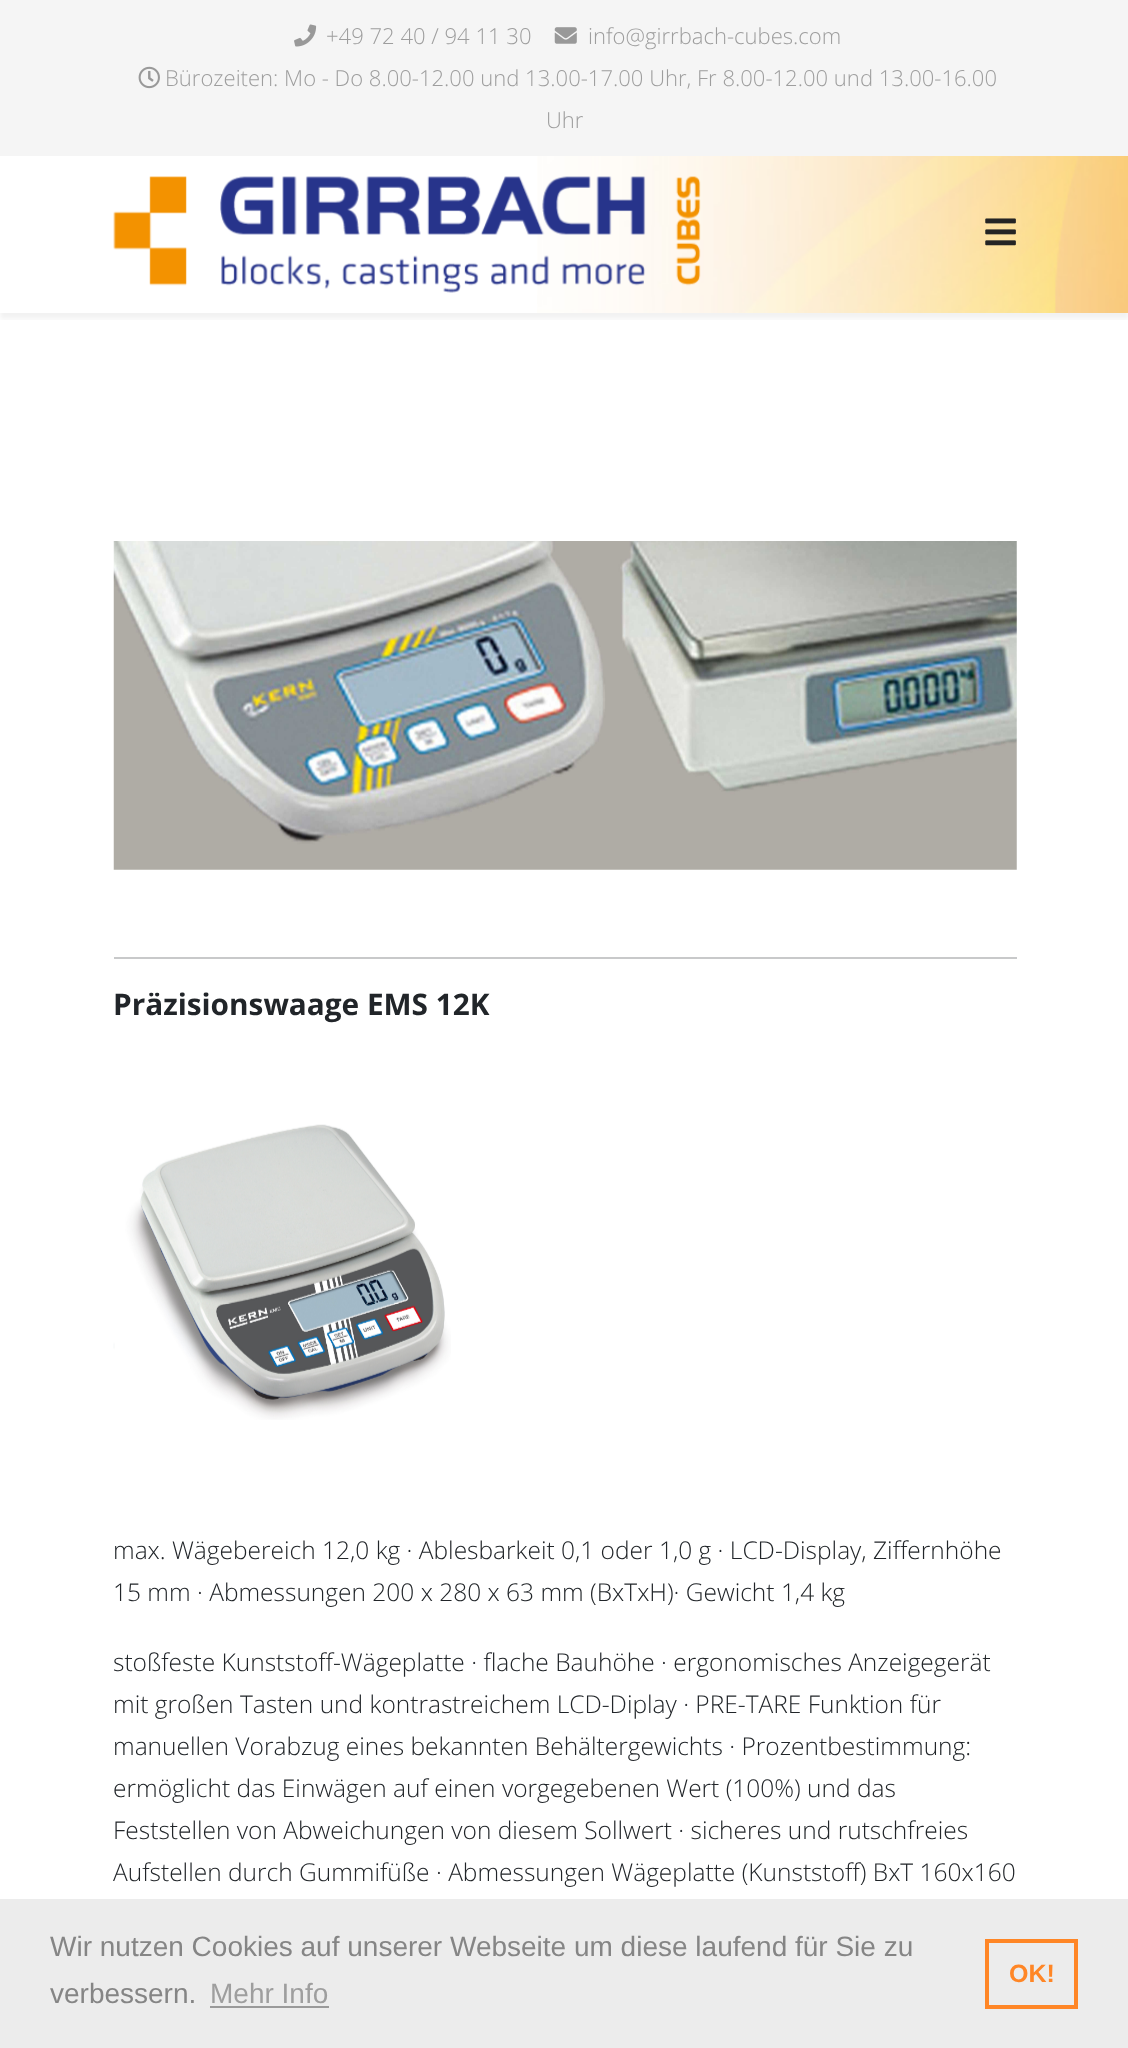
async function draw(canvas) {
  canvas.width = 1128;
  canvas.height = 2048;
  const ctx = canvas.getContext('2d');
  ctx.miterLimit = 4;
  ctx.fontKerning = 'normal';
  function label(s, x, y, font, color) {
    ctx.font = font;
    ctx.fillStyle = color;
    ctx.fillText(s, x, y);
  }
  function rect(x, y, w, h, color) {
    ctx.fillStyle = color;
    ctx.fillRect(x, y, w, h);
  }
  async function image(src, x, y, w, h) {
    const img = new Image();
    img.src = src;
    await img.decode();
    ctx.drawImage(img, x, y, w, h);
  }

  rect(0, 0, 1128, 2048, '#fff');
  rect(0, 0, 1128, 156, '#f5f5f5');
  await image('assets/img1.png', 294, 24, 23, 23);
  label('+49 72 40 / 94 11 30', 326, 44, '300 22.05px Open Sans', '#9e9e9e');
  await image('assets/img2.png', 554, 27, 23, 17);
  label('info@girrbach-cubes.com', 588, 44, '300 22.05px Open Sans', '#9e9e9e');
  await image('assets/img3.png', 138, 66, 22, 23);
  label('Bürozeiten: Mo - Do 8.00-12.00 und 13.00-17.00 Uhr, Fr 8.00-12.00 und 13.00-16.00', 165, 86, '300 22.05px Open Sans', '#9e9e9e');
  label('Uhr', 546, 128, '300 22.05px Open Sans', '#9e9e9e');
  ctx.save();
  ctx.beginPath();
  ctx.rect(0, 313, 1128, 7);
  ctx.clip();
  ctx.fillStyle = '#0000000d';
  ctx.filter = 'blur(2.5px)';
  ctx.beginPath();
  ctx.rect(0, 161, 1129, 158);
  ctx.fill();
  ctx.filter = 'none';
  ctx.restore();
  await image('assets/img4.png', 537, 156, 591, 157);
  await image('assets/img5.png', 113, 176, 588, 117);
  await image('assets/img6.png', 985, 218, 31, 28);
  await image('assets/img7.png', 113, 541, 904, 329);
  rect(114, 957, 903, 2, '#c8c9ca');
  label('Präzisionswaage EMS 12K', 113, 1015, 'bold 29.75px Open Sans', '#212529');
  await image('assets/img8.png', 113, 1124, 338, 296);
  label('max. Wägebereich 12,0 kg · Ablesbarkeit 0,1 oder 1,0 g · LCD-Display, Ziffernhöhe', 113, 1559, '300 24.5px Open Sans', '#212529');
  label('15 mm · Abmessungen 200 x 280 x 63 mm (BxTxH)· Gewicht 1,4 kg', 113, 1601, '300 24.5px Open Sans', '#212529');
  label('stoßfeste Kunststoff-Wägeplatte · flache Bauhöhe · ergonomisches Anzeigegerät', 113, 1671, '300 24.5px Open Sans', '#212529');
  label('mit großen Tasten und kontrastreichem LCD-Diplay · PRE-TARE Funktion für', 113, 1713, '300 24.5px Open Sans', '#212529');
  label('manuellen Vorabzug eines bekannten Behältergewichts · Prozentbestimmung:', 113, 1755, '300 24.5px Open Sans', '#212529');
  label('ermöglicht das Einwägen auf einen vorgegebenen Wert (100%) und das', 113, 1797, '300 24.5px Open Sans', '#212529');
  label('Feststellen von Abweichungen von diesem Sollwert · sicheres und rutschfreies', 113, 1839, '300 24.5px Open Sans', '#212529');
  label('Aufstellen durch Gummifüße · Abmessungen Wägeplatte (Kunststoff) BxT 160x160', 113, 1881, '300 24.5px Open Sans', '#212529');
  rect(0, 1899, 1128, 149, '#ececec');
  label('Wir nutzen Cookies auf unserer Webseite um diese laufend für Sie zu', 50, 1956, '28px Liberation Sans', '#858585');
  label('verbessern.', 50, 2003, '28px Liberation Sans', '#858585');
  label('Mehr Info', 210, 2003, '28px Liberation Sans', '#9e9e9e');
  rect(210, 2006, 119, 2, '#9a9a9a');
  ctx.strokeStyle = '#ff8626';
  ctx.lineWidth = 4;
  ctx.strokeRect(987, 1941, 89, 66);
  label('OK!', 1009, 1982, 'bold 25px Liberation Sans', '#ff8626');
}

draw(document.querySelector('canvas'));
